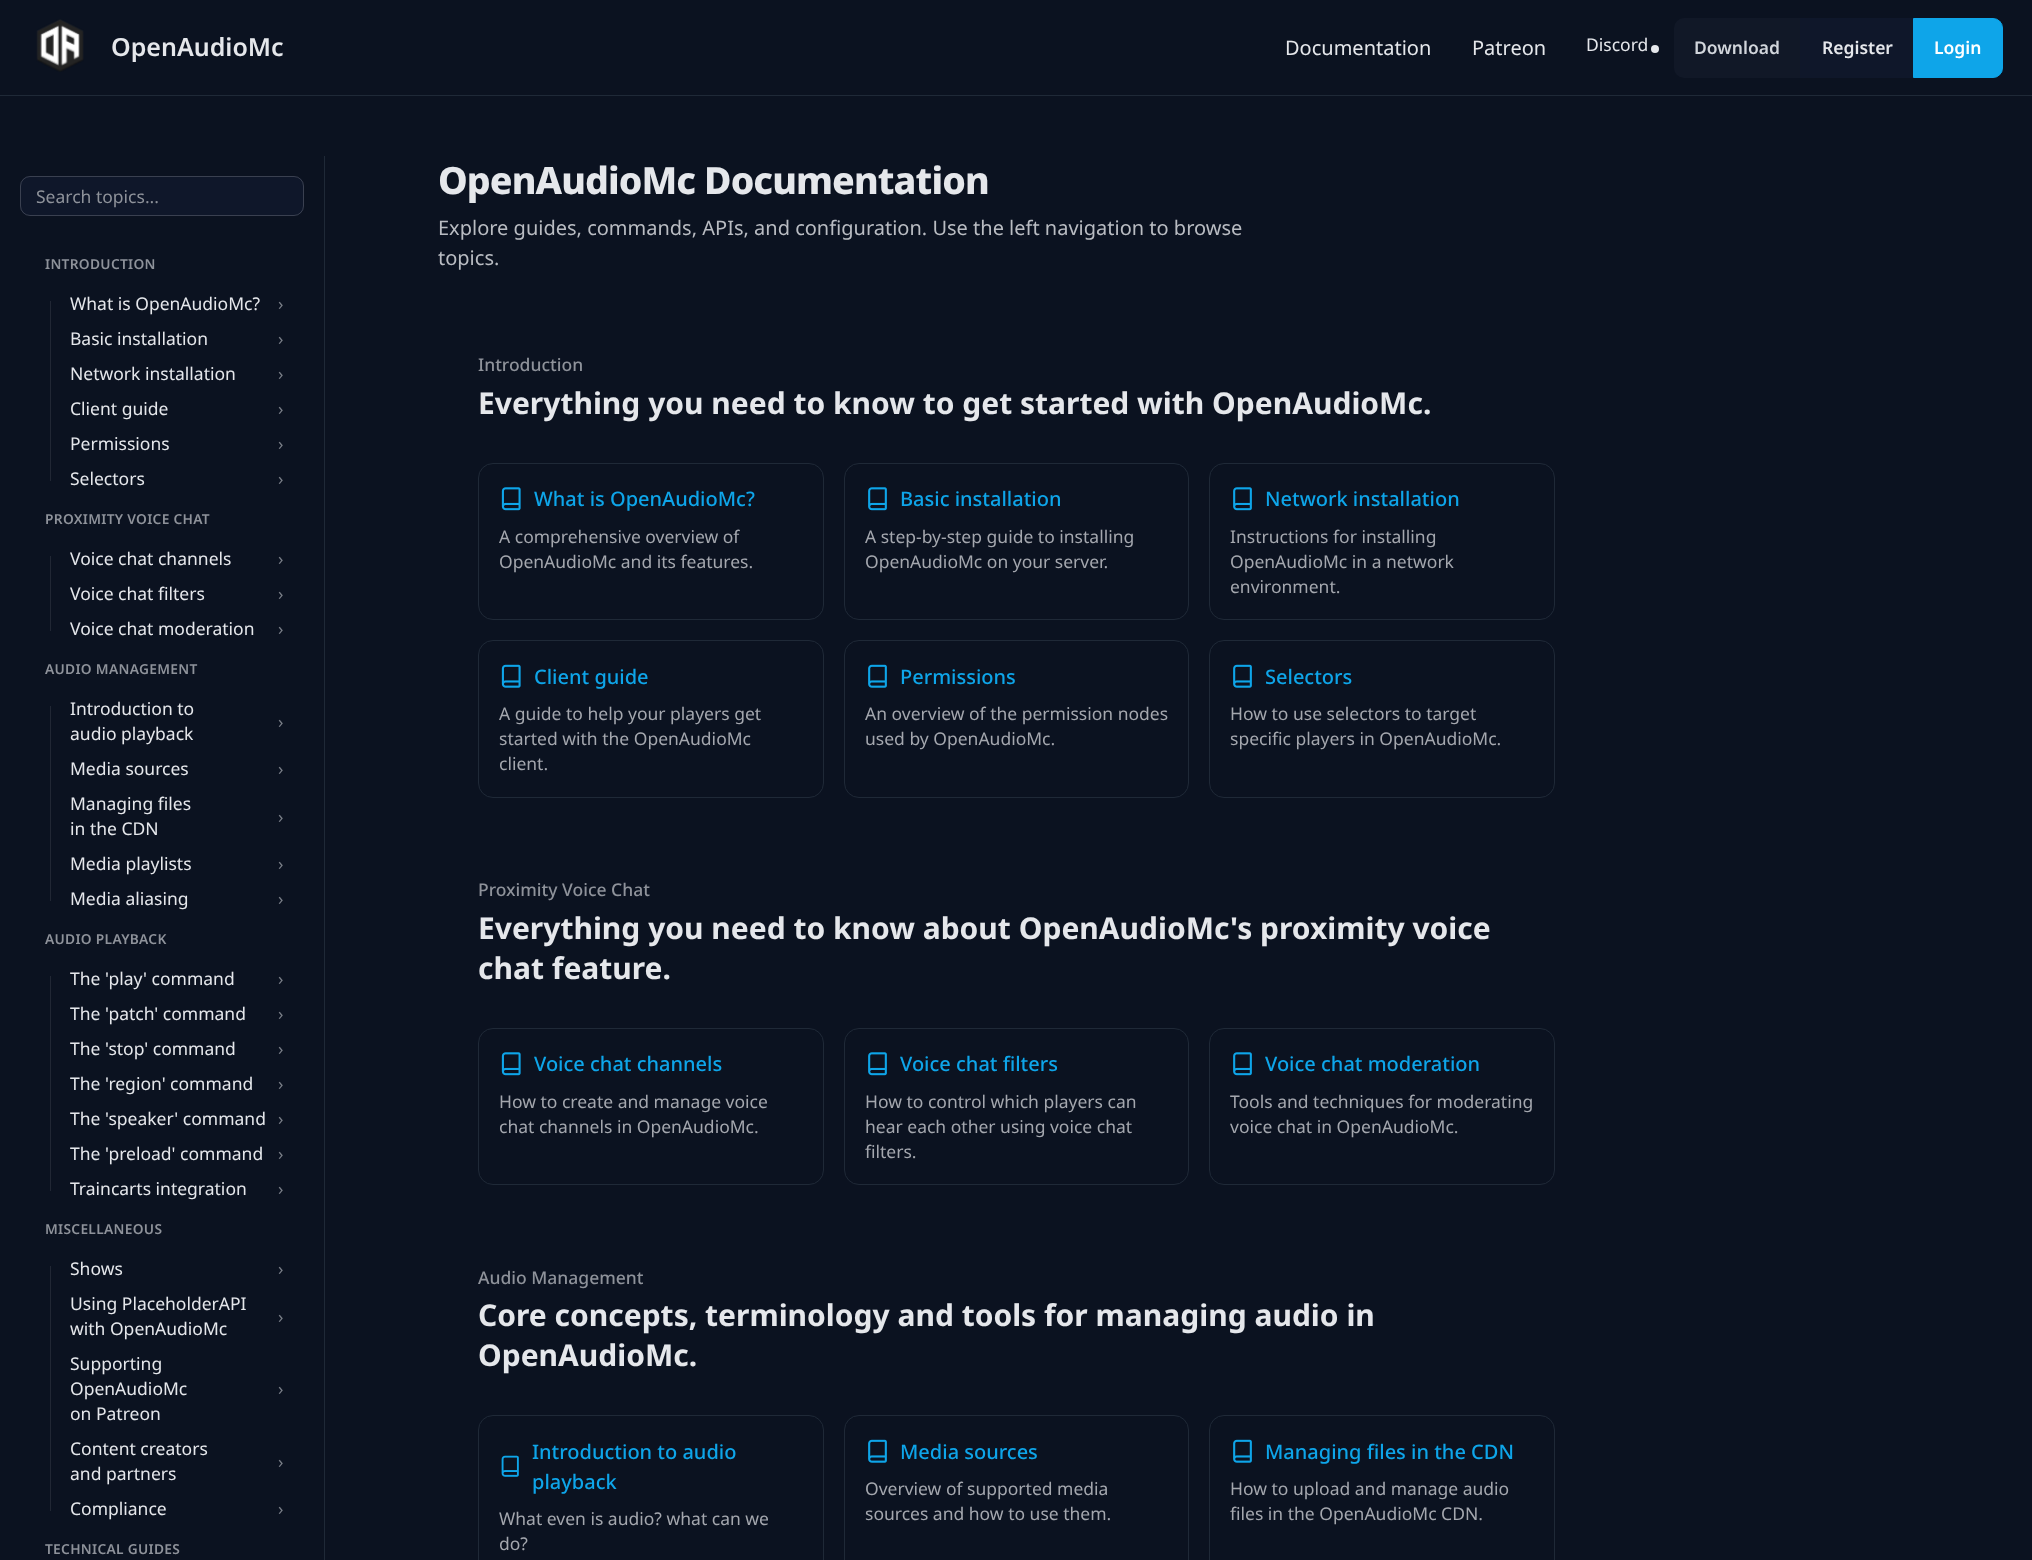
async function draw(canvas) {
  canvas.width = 2032;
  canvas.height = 1560;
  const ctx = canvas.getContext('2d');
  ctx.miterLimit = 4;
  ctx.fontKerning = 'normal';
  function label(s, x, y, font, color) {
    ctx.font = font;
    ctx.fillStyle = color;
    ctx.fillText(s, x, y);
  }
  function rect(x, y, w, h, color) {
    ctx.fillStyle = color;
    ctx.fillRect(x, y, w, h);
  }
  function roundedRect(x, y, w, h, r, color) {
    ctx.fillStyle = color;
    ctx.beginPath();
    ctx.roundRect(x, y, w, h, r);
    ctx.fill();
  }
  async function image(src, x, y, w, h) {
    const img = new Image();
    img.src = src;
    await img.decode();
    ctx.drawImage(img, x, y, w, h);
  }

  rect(0, 0, 2032, 1560, '#0b1220');
  rect(0, 95, 2032, 1, '#1f2937');
  await image('assets/img1.png', 36, 19, 48, 53);
  label('OpenAudioMc', 111, 56, '600 25px Noto Sans', '#e5e7eb');
  label('Documentation', 1285, 55, '20px Noto Sans', '#e5e7eb');
  label('Patreon', 1472, 55, '20px Noto Sans', '#e5e7eb');
  label('Discord', 1586, 51, '17.5px Noto Sans', '#e5e7eb');
  ctx.beginPath();
  ctx.arc(1655, 49, 4, 0, 2 * Math.PI);
  ctx.fill();
  ctx.fillStyle = '#111827';
  ctx.beginPath();
  ctx.roundRect(1674, 18, 127, 60, [10, 0, 0, 10]);
  ctx.fill();
  label('Download', 1694, 54, '600 17.5px Noto Sans', '#d1d5db');
  rect(1800, 18, 113, 60, '#0f172a');
  label('Register', 1822, 54, '600 17.5px Noto Sans', '#e5e7eb');
  ctx.fillStyle = '#0ea5e9';
  ctx.beginPath();
  ctx.roundRect(1913.5, 18.5, 89, 59, [0, 9.5, 9.5, 0]);
  ctx.fill();
  ctx.strokeStyle = '#0ea5e9';
  ctx.stroke();
  label('Login', 1934, 54, '600 17.5px Noto Sans', '#fff');
  rect(324, 156, 1, 1404, '#1f2937');
  roundedRect(20, 176, 284, 40, 10, '#0f172a');
  ctx.beginPath();
  ctx.roundRect(20.5, 176.5, 283, 39, 9.5);
  ctx.strokeStyle = '#e5e7eb33';
  ctx.stroke();
  label('Search topics...', 36, 203, '17.5px Noto Sans', '#8e929a');
  ctx.letterSpacing = '0.3px';
  label('INTRODUCTION', 45, 269, '600 13.75px Noto Sans', '#8e929a');
  rect(50, 301, 1, 180, '#212734');
  ctx.letterSpacing = '0px';
  label('What is OpenAudioMc?', 70, 310, '17.5px Noto Sans', '#e5e7eb');
  label('›', 278, 310, '17.5px Noto Sans', '#787d86');
  label('Basic installation', 70, 345, '17.5px Noto Sans', '#e5e7eb');
  label('›', 278, 345, '17.5px Noto Sans', '#787d86');
  label('Network installation', 70, 380, '17.5px Noto Sans', '#e5e7eb');
  label('›', 278, 380, '17.5px Noto Sans', '#787d86');
  label('Client guide', 70, 415, '17.5px Noto Sans', '#e5e7eb');
  label('›', 278, 415, '17.5px Noto Sans', '#787d86');
  label('Permissions', 70, 450, '17.5px Noto Sans', '#e5e7eb');
  label('›', 278, 450, '17.5px Noto Sans', '#787d86');
  label('Selectors', 70, 485, '17.5px Noto Sans', '#e5e7eb');
  label('›', 278, 485, '17.5px Noto Sans', '#787d86');
  ctx.letterSpacing = '0.3px';
  label('PROXIMITY VOICE CHAT', 45, 524, '600 13.75px Noto Sans', '#8e929a');
  rect(50, 556, 1, 75, '#212734');
  ctx.letterSpacing = '0px';
  label('Voice chat channels', 70, 565, '17.5px Noto Sans', '#e5e7eb');
  label('›', 278, 565, '17.5px Noto Sans', '#787d86');
  label('Voice chat filters', 70, 600, '17.5px Noto Sans', '#e5e7eb');
  label('›', 278, 600, '17.5px Noto Sans', '#787d86');
  label('Voice chat moderation', 70, 635, '17.5px Noto Sans', '#e5e7eb');
  label('›', 278, 635, '17.5px Noto Sans', '#787d86');
  ctx.letterSpacing = '0.3px';
  label('AUDIO MANAGEMENT', 45, 674, '600 13.75px Noto Sans', '#8e929a');
  rect(50, 706, 1, 195, '#212734');
  ctx.letterSpacing = '0px';
  label('Introduction to', 70, 715, '17.5px Noto Sans', '#e5e7eb');
  label('audio playback', 70, 740, '17.5px Noto Sans', '#e5e7eb');
  label('›', 278, 728, '17.5px Noto Sans', '#787d86');
  label('Media sources', 70, 775, '17.5px Noto Sans', '#e5e7eb');
  label('›', 278, 775, '17.5px Noto Sans', '#787d86');
  label('Managing files', 70, 810, '17.5px Noto Sans', '#e5e7eb');
  label('in the CDN', 70, 835, '17.5px Noto Sans', '#e5e7eb');
  label('›', 278, 823, '17.5px Noto Sans', '#787d86');
  label('Media playlists', 70, 870, '17.5px Noto Sans', '#e5e7eb');
  label('›', 278, 870, '17.5px Noto Sans', '#787d86');
  label('Media aliasing', 70, 905, '17.5px Noto Sans', '#e5e7eb');
  label('›', 278, 905, '17.5px Noto Sans', '#787d86');
  ctx.letterSpacing = '0.3px';
  label('AUDIO PLAYBACK', 45, 944, '600 13.75px Noto Sans', '#8e929a');
  rect(50, 976, 1, 215, '#212734');
  ctx.letterSpacing = '0px';
  label('The \'play\' command', 70, 985, '17.5px Noto Sans', '#e5e7eb');
  label('›', 278, 985, '17.5px Noto Sans', '#787d86');
  label('The \'patch\' command', 70, 1020, '17.5px Noto Sans', '#e5e7eb');
  label('›', 278, 1020, '17.5px Noto Sans', '#787d86');
  label('The \'stop\' command', 70, 1055, '17.5px Noto Sans', '#e5e7eb');
  label('›', 278, 1055, '17.5px Noto Sans', '#787d86');
  label('The \'region\' command', 70, 1090, '17.5px Noto Sans', '#e5e7eb');
  label('›', 278, 1090, '17.5px Noto Sans', '#787d86');
  label('The \'speaker\' command', 70, 1125, '17.5px Noto Sans', '#e5e7eb');
  label('›', 278, 1125, '17.5px Noto Sans', '#787d86');
  label('The \'preload\' command', 70, 1160, '17.5px Noto Sans', '#e5e7eb');
  label('›', 278, 1160, '17.5px Noto Sans', '#787d86');
  label('Traincarts integration', 70, 1195, '17.5px Noto Sans', '#e5e7eb');
  label('›', 278, 1195, '17.5px Noto Sans', '#787d86');
  ctx.letterSpacing = '0.3px';
  label('MISCELLANEOUS', 45, 1234, '600 13.75px Noto Sans', '#8e929a');
  rect(50, 1266, 1, 245, '#212734');
  ctx.letterSpacing = '0px';
  label('Shows', 70, 1275, '17.5px Noto Sans', '#e5e7eb');
  label('›', 278, 1275, '17.5px Noto Sans', '#787d86');
  label('Using PlaceholderAPI', 70, 1310, '17.5px Noto Sans', '#e5e7eb');
  label('with OpenAudioMc', 70, 1335, '17.5px Noto Sans', '#e5e7eb');
  label('›', 278, 1323, '17.5px Noto Sans', '#787d86');
  label('Supporting', 70, 1370, '17.5px Noto Sans', '#e5e7eb');
  label('OpenAudioMc', 70, 1395, '17.5px Noto Sans', '#e5e7eb');
  label('on Patreon', 70, 1420, '17.5px Noto Sans', '#e5e7eb');
  label('›', 278, 1395, '17.5px Noto Sans', '#787d86');
  label('Content creators', 70, 1455, '17.5px Noto Sans', '#e5e7eb');
  label('and partners', 70, 1480, '17.5px Noto Sans', '#e5e7eb');
  label('›', 278, 1468, '17.5px Noto Sans', '#787d86');
  label('Compliance', 70, 1515, '17.5px Noto Sans', '#e5e7eb');
  label('›', 278, 1515, '17.5px Noto Sans', '#787d86');
  ctx.letterSpacing = '0.3px';
  label('TECHNICAL GUIDES', 45, 1554, '600 13.75px Noto Sans', '#8e929a');
  ctx.letterSpacing = '-0.9px';
  label('OpenAudioMc Documentation', 438, 194, '800 37.5px Noto Sans', '#e5e7eb');
  ctx.letterSpacing = '0px';
  label('Explore guides, commands, APIs, and configuration. Use the left navigation to browse', 438, 235, '20px Noto Sans', '#b9bcc2');
  label('topics.', 438, 265, '20px Noto Sans', '#b9bcc2');
  label('Introduction', 478, 371, '500 17.5px Noto Sans', '#8e929a');
  label('Everything you need to know to get started with OpenAudioMc.', 478, 414, 'bold 30px Noto Sans', '#e5e7eb');
  ctx.beginPath();
  ctx.roundRect(478.5, 463.5, 345, 156, 14.5);
  ctx.strokeStyle = '#1f2937';
  ctx.stroke();
  await image('assets/img2.png', 501, 487, 20, 24);
  label('What is OpenAudioMc?', 534, 506, '500 20px Noto Sans', '#0ea5e9');
  label('A comprehensive overview of', 499, 543, '17.5px Noto Sans', '#a4a7ae');
  label('OpenAudioMc and its features.', 499, 568, '17.5px Noto Sans', '#a4a7ae');
  ctx.beginPath();
  ctx.roundRect(844.5, 463.5, 344, 156, 14.5);
  ctx.stroke();
  await image('assets/img3.png', 868, 487, 19, 24);
  label('Basic installation', 900, 506, '500 20px Noto Sans', '#0ea5e9');
  label('A step-by-step guide to installing', 865, 543, '17.5px Noto Sans', '#a4a7ae');
  label('OpenAudioMc on your server.', 865, 568, '17.5px Noto Sans', '#a4a7ae');
  ctx.beginPath();
  ctx.roundRect(1209.5, 463.5, 345, 156, 14.5);
  ctx.stroke();
  await image('assets/img3.png', 1233, 487, 19, 24);
  label('Network installation', 1265, 506, '500 20px Noto Sans', '#0ea5e9');
  label('Instructions for installing', 1230, 543, '17.5px Noto Sans', '#a4a7ae');
  label('OpenAudioMc in a network', 1230, 568, '17.5px Noto Sans', '#a4a7ae');
  label('environment.', 1230, 593, '17.5px Noto Sans', '#a4a7ae');
  ctx.beginPath();
  ctx.roundRect(478.5, 640.5, 345, 157, 14.5);
  ctx.stroke();
  await image('assets/img4.png', 501, 664, 20, 24);
  label('Client guide', 534, 684, '500 20px Noto Sans', '#0ea5e9');
  label('A guide to help your players get', 499, 720, '17.5px Noto Sans', '#a4a7ae');
  label('started with the OpenAudioMc', 499, 745, '17.5px Noto Sans', '#a4a7ae');
  label('client.', 499, 770, '17.5px Noto Sans', '#a4a7ae');
  ctx.beginPath();
  ctx.roundRect(844.5, 640.5, 344, 157, 14.5);
  ctx.stroke();
  await image('assets/img5.png', 868, 664, 19, 24);
  label('Permissions', 900, 684, '500 20px Noto Sans', '#0ea5e9');
  label('An overview of the permission nodes', 865, 720, '17.5px Noto Sans', '#a4a7ae');
  label('used by OpenAudioMc.', 865, 745, '17.5px Noto Sans', '#a4a7ae');
  ctx.beginPath();
  ctx.roundRect(1209.5, 640.5, 345, 157, 14.5);
  ctx.stroke();
  await image('assets/img5.png', 1233, 664, 19, 24);
  label('Selectors', 1265, 684, '500 20px Noto Sans', '#0ea5e9');
  label('How to use selectors to target', 1230, 720, '17.5px Noto Sans', '#a4a7ae');
  label('specific players in OpenAudioMc.', 1230, 745, '17.5px Noto Sans', '#a4a7ae');
  label('Proximity Voice Chat', 478, 896, '500 17.5px Noto Sans', '#8e929a');
  label('Everything you need to know about OpenAudioMc\'s proximity voice', 478, 939, 'bold 30px Noto Sans', '#e5e7eb');
  label('chat feature.', 478, 979, 'bold 30px Noto Sans', '#e5e7eb');
  ctx.beginPath();
  ctx.roundRect(478.5, 1028.5, 345, 156, 14.5);
  ctx.stroke();
  await image('assets/img2.png', 501, 1052, 20, 24);
  label('Voice chat channels', 534, 1071, '500 20px Noto Sans', '#0ea5e9');
  label('How to create and manage voice', 499, 1108, '17.5px Noto Sans', '#a4a7ae');
  label('chat channels in OpenAudioMc.', 499, 1133, '17.5px Noto Sans', '#a4a7ae');
  ctx.beginPath();
  ctx.roundRect(844.5, 1028.5, 344, 156, 14.5);
  ctx.stroke();
  await image('assets/img3.png', 868, 1052, 19, 24);
  label('Voice chat filters', 900, 1071, '500 20px Noto Sans', '#0ea5e9');
  label('How to control which players can', 865, 1108, '17.5px Noto Sans', '#a4a7ae');
  label('hear each other using voice chat', 865, 1133, '17.5px Noto Sans', '#a4a7ae');
  label('filters.', 865, 1158, '17.5px Noto Sans', '#a4a7ae');
  ctx.beginPath();
  ctx.roundRect(1209.5, 1028.5, 345, 156, 14.5);
  ctx.stroke();
  await image('assets/img3.png', 1233, 1052, 19, 24);
  label('Voice chat moderation', 1265, 1071, '500 20px Noto Sans', '#0ea5e9');
  label('Tools and techniques for moderating', 1230, 1108, '17.5px Noto Sans', '#a4a7ae');
  label('voice chat in OpenAudioMc.', 1230, 1133, '17.5px Noto Sans', '#a4a7ae');
  label('Audio Management', 478, 1284, '500 17.5px Noto Sans', '#8e929a');
  label('Core concepts, terminology and tools for managing audio in', 478, 1326, 'bold 30px Noto Sans', '#e5e7eb');
  label('OpenAudioMc.', 478, 1366, 'bold 30px Noto Sans', '#e5e7eb');
  ctx.beginPath();
  ctx.roundRect(478.5, 1415.5, 345, 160, 14.5);
  ctx.stroke();
  await image('assets/img6.png', 501, 1455, 18, 22);
  label('Introduction to audio', 532, 1459, '500 20px Noto Sans', '#0ea5e9');
  label('playback', 532, 1489, '500 20px Noto Sans', '#0ea5e9');
  label('What even is audio? what can we', 499, 1525, '17.5px Noto Sans', '#a4a7ae');
  label('do?', 499, 1550, '17.5px Noto Sans', '#a4a7ae');
  ctx.beginPath();
  ctx.roundRect(844.5, 1415.5, 344, 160, 14.5);
  ctx.stroke();
  await image('assets/img5.png', 868, 1439, 19, 24);
  label('Media sources', 900, 1459, '500 20px Noto Sans', '#0ea5e9');
  label('Overview of supported media', 865, 1495, '17.5px Noto Sans', '#a4a7ae');
  label('sources and how to use them.', 865, 1520, '17.5px Noto Sans', '#a4a7ae');
  ctx.beginPath();
  ctx.roundRect(1209.5, 1415.5, 345, 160, 14.5);
  ctx.stroke();
  await image('assets/img5.png', 1233, 1439, 19, 24);
  label('Managing files in the CDN', 1265, 1459, '500 20px Noto Sans', '#0ea5e9');
  label('How to upload and manage audio', 1230, 1495, '17.5px Noto Sans', '#a4a7ae');
  label('files in the OpenAudioMc CDN.', 1230, 1520, '17.5px Noto Sans', '#a4a7ae');
}

draw(document.querySelector('canvas'));
